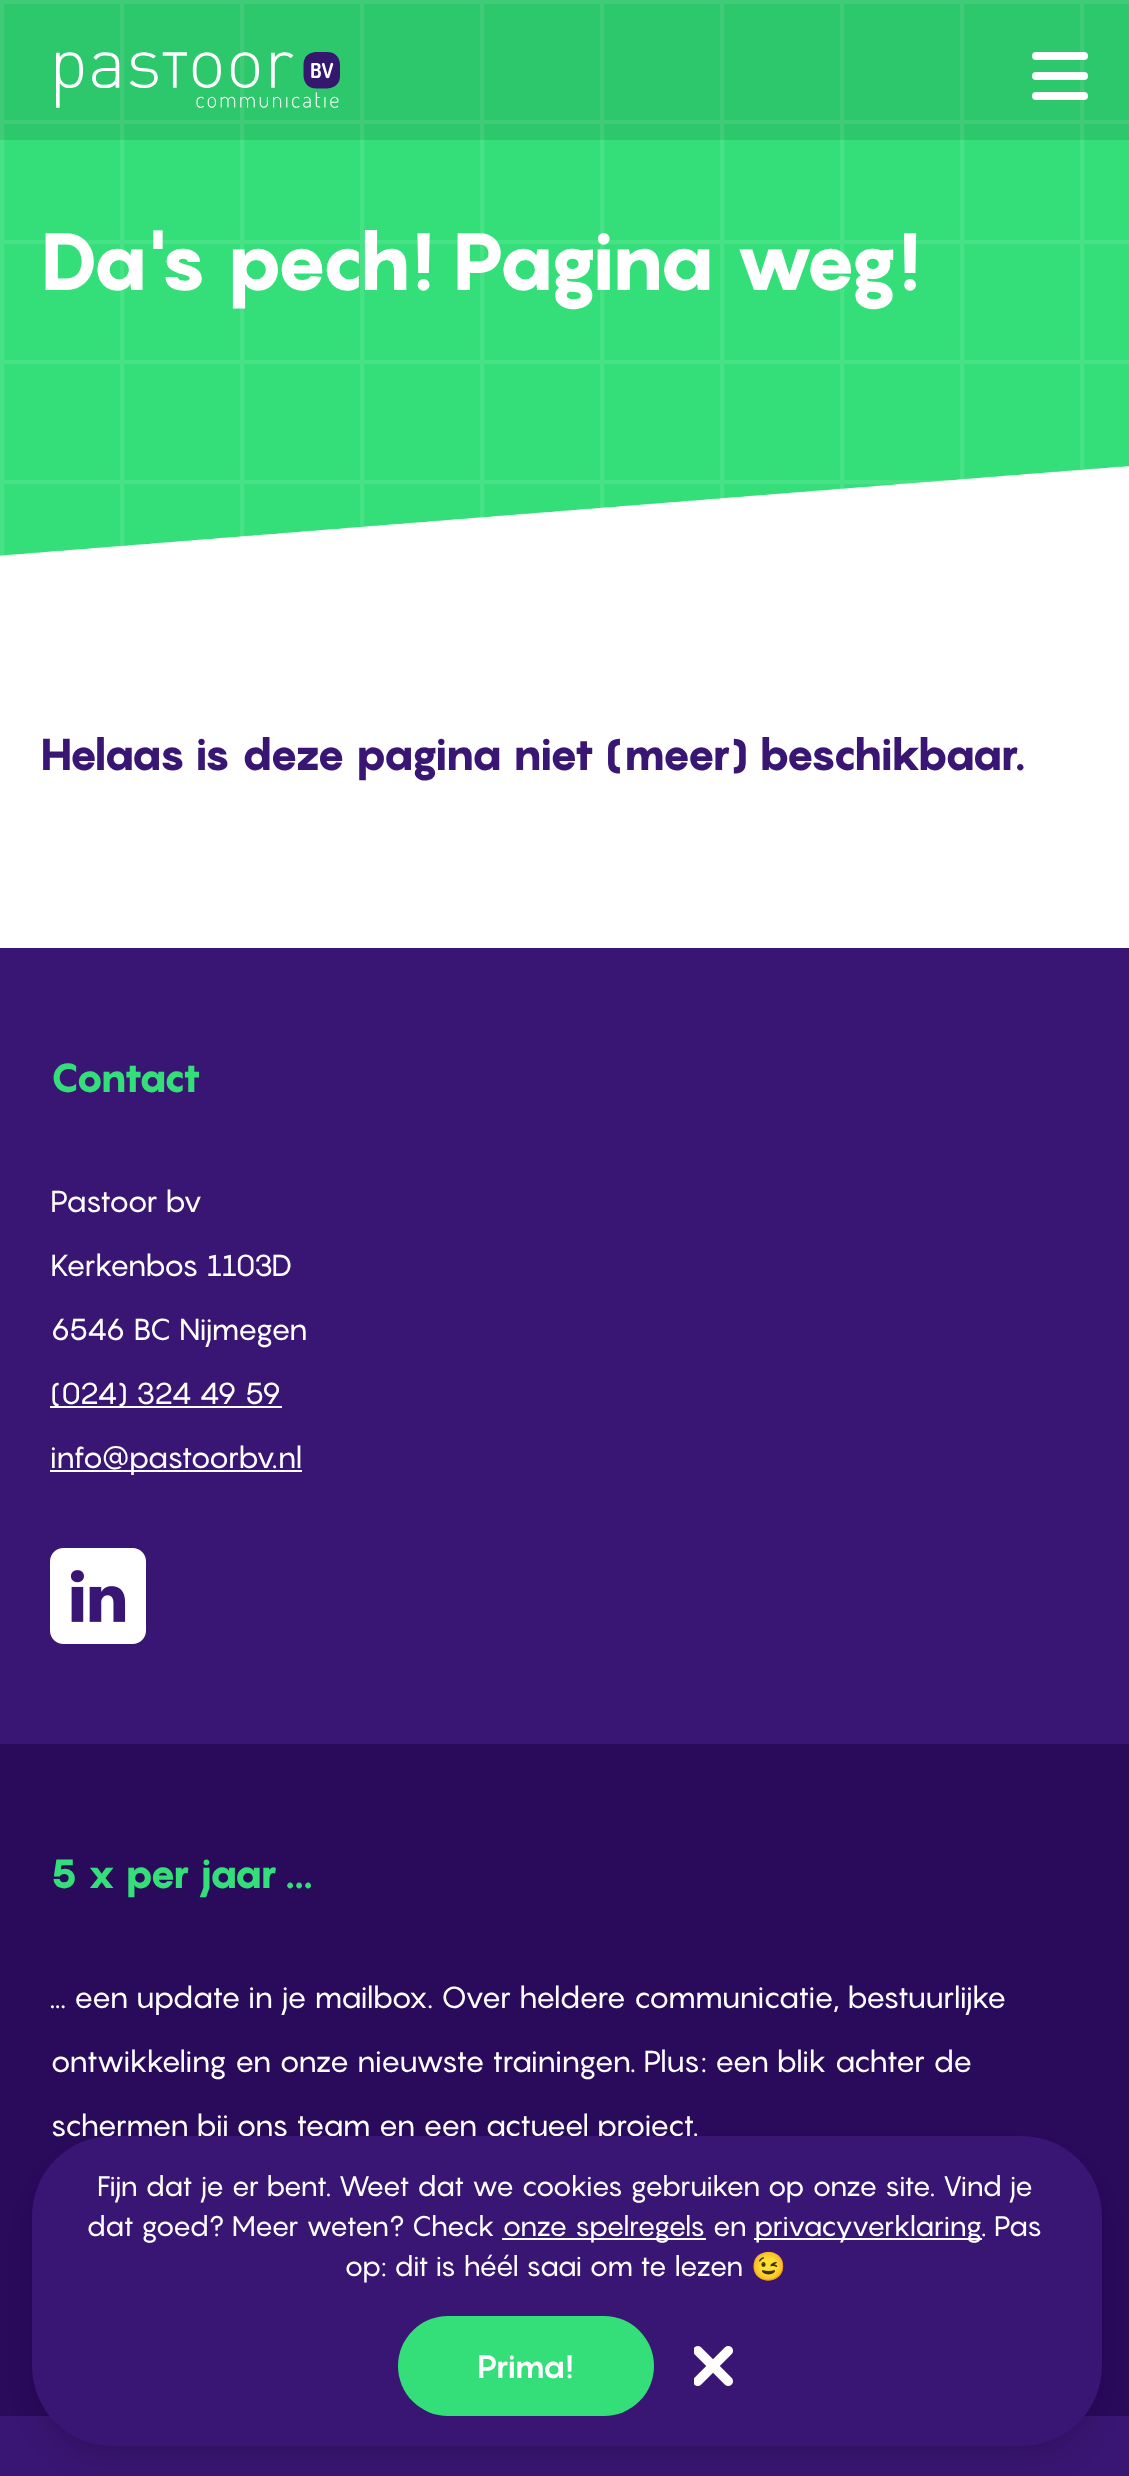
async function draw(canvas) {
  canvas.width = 1129;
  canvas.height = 2476;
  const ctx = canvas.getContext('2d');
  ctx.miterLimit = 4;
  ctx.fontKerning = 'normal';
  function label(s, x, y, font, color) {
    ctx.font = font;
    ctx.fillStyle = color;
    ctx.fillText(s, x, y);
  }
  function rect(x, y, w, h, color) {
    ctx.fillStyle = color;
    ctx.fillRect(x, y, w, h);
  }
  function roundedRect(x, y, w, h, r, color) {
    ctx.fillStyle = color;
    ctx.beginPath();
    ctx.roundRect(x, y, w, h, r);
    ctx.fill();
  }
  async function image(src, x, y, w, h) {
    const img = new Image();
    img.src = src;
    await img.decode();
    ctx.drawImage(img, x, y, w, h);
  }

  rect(0, 0, 1129, 2476, '#fff');
  rect(0, 0, 1129, 556, '#34df79');
  await image('assets/img2.png', 0, 0, 1129, 556);
  rect(0, 0, 1129, 140, '#0000001a');
  await image('assets/img1.png', 56, 52, 284, 56);
  roundedRect(1032, 52, 56, 8, 4, '#fff');
  roundedRect(1032, 72, 56, 8, 4, '#fff');
  roundedRect(1032, 92, 56, 8, 4, '#fff');
  label('Da\'s pech! Pagina weg!', 40, 290, '800 80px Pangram', '#fff');
  await image('assets/img3.png', 0, 466, 1129, 94);
  label('Helaas is deze pagina niet (meer) beschikbaar.', 40, 770, '800 44px Pangram', '#391673');
  rect(0, 948, 1129, 1528, '#391673');
  label('Contact', 50, 1092, '800 40px Pangram', '#34df79');
  label('Pastoor bv', 50, 1212, '30px Pangram', '#fff');
  label('Kerkenbos 1103D', 50, 1276, '30px Pangram', '#fff');
  label('6546 BC Nijmegen', 50, 1340, '30px Pangram', '#fff');
  rect(50, 1406, 232, 2, '#fff');
  label('(024) 324 49 59', 50, 1404, '30px Pangram', '#fff');
  rect(50, 1470, 252, 2, '#fff');
  label('info@pastoorbv.nl', 50, 1468, '30px Pangram', '#fff');
  await image('assets/img4.png', 50, 1548, 96, 96);
  rect(0, 1744, 1129, 672, '#290a5b');
  label('5 x per jaar ...', 50, 1888, '800 40px Pangram', '#34df79');
  label('... een update in je mailbox. Over heldere communicatie, bestuurlijke', 50, 2008, '30px Pangram', '#fff');
  label('ontwikkeling en onze nieuwste trainingen. Plus: een blik achter de', 50, 2072, '30px Pangram', '#fff');
  label('schermen bij ons team en een actueel project.', 50, 2136, '30px Pangram', '#fff');
  ctx.fillStyle = '#0000001a';
  ctx.filter = 'blur(6px)';
  ctx.beginPath();
  ctx.roundRect(40, 2152, 1054, 294, 72);
  ctx.fill();
  ctx.filter = 'none';
  ctx.filter = 'blur(15px)';
  ctx.beginPath();
  ctx.roundRect(38, 2162, 1058, 298, 74);
  ctx.fill();
  ctx.filter = 'none';
  roundedRect(32, 2136, 1070, 310, 80, '#391673');
  label('Fijn dat je er bent. Weet dat we cookies gebruiken op onze site. Vind je', 97, 2196, '28px Pangram', '#fff');
  label('dat goed? Meer weten? Check', 86, 2236, '28px Pangram', '#fff');
  rect(502, 2238, 204, 2, '#fff');
  label('onze spelregels en', 502, 2236, '28px Pangram', '#fff');
  rect(754, 2238, 228, 2, '#fff');
  label('privacyverklaring. Pas', 754, 2236, '28px Pangram', '#fff');
  label('op: dit is héél saai om te lezen', 344, 2276, '28px Pangram', '#fff');
  label('😉', 751, 2276, '28px Noto Color Emoji', '#fff');
  roundedRect(398, 2316, 256, 100, 50, '#34df79');
  label('Prima!', 477, 2378, 'bold 32px Pangram', '#fff');
  await image('assets/img5.png', 694, 2346, 39, 40);
}

draw(document.querySelector('canvas'));
